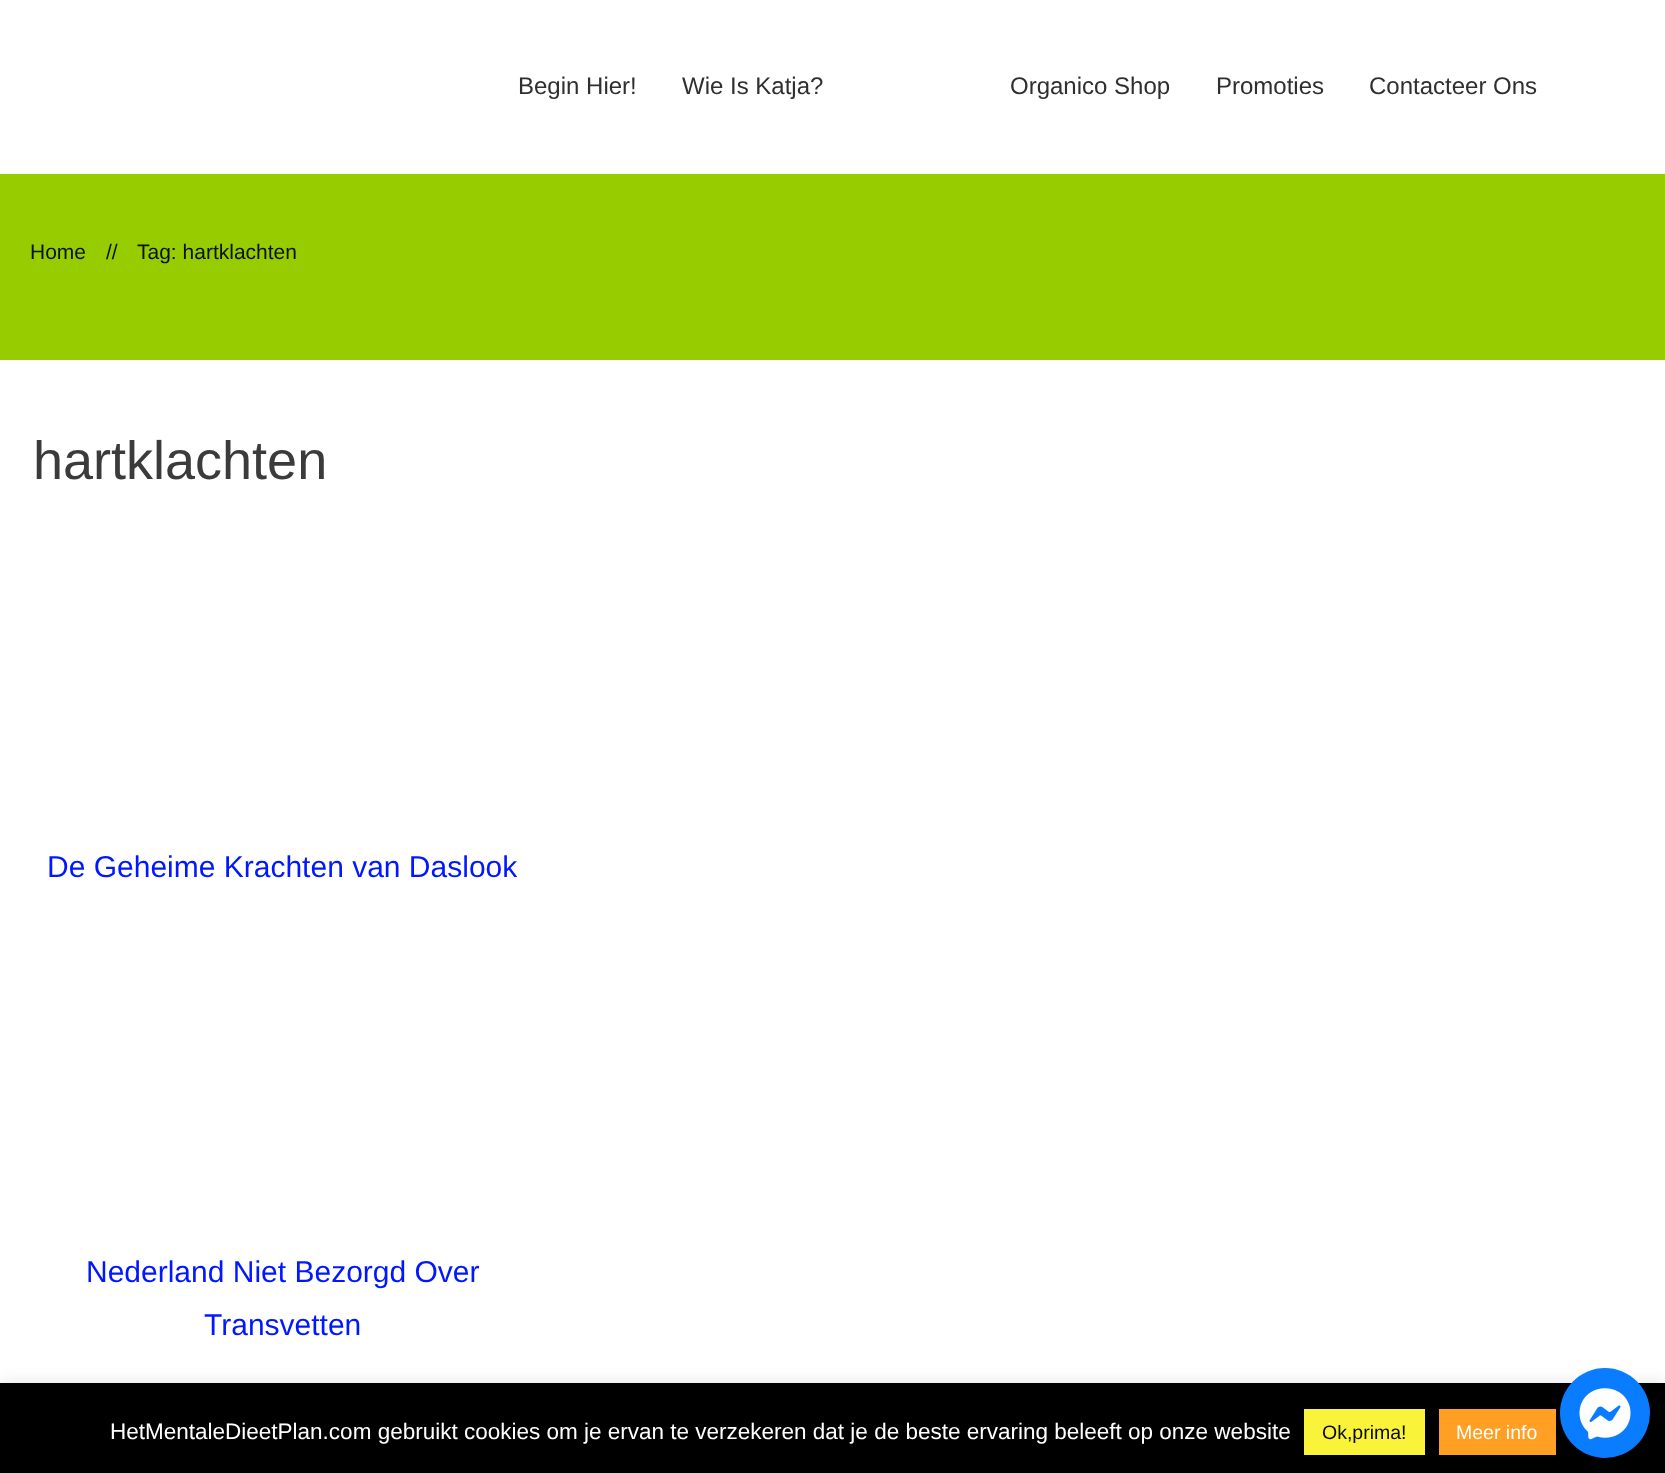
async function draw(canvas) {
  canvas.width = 1665;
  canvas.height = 1473;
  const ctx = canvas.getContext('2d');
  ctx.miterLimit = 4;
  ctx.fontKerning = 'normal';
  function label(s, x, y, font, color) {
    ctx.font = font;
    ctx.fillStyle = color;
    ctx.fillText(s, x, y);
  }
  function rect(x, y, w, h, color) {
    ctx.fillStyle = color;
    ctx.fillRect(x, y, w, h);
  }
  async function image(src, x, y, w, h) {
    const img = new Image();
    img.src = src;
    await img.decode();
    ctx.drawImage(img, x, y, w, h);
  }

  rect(0, 0, 1665, 1473, '#fff');
  label('Begin Hier!', 518, 94, '24px Liberation Sans', '#2f2f2f');
  label('Wie Is Katja?', 682, 94, '24px Liberation Sans', '#2f2f2f');
  label('Organico Shop', 1010, 94, '24px Liberation Sans', '#2f2f2f');
  label('Promoties', 1216, 94, '24px Liberation Sans', '#2f2f2f');
  label('Contacteer Ons', 1369, 94, '24px Liberation Sans', '#2f2f2f');
  rect(0, 174, 1665, 186, '#96cc00');
  label('Home', 30, 259, '21px Liberation Sans', '#0c1115');
  label('//', 106, 259, '21px Liberation Sans', '#0c1115');
  label('Tag: hartklachten', 137, 259, '21px Liberation Sans', '#0c1115');
  label('hartklachten', 33, 479, '54px Liberation Sans', '#3b3b3b');
  label('De Geheime Krachten van Daslook', 47, 877, '30px Liberation Sans', '#0017ff');
  label('Nederland Niet Bezorgd Over', 86, 1282, '30px Liberation Sans', '#0017ff');
  label('Transvetten', 204, 1335, '30px Liberation Sans', '#0017ff');
  ctx.fillStyle = '#acabab4d';
  ctx.filter = 'blur(7.5px)';
  ctx.beginPath();
  ctx.rect(0, 1382, 1665, 90);
  ctx.fill();
  ctx.filter = 'none';
  rect(0, 1383, 1665, 90, '#000');
  label('HetMentaleDieetPlan.com gebruikt cookies om je ervan te verzekeren dat je de beste ervaring beleeft op onze website', 110, 1439, '22.5px Liberation Sans', '#fff');
  rect(1304, 1409, 121, 46, '#f9f339');
  label('Ok,prima!', 1322, 1439, '19.5px Liberation Sans', '#0a0a0a');
  rect(1439, 1409, 117, 46, '#ff9f23');
  label('Meer info', 1456, 1439, '19.5px Liberation Sans', '#fff');
  ctx.fillStyle = '#0a7cff';
  ctx.beginPath();
  ctx.arc(1605, 1413, 45, 0, 2 * Math.PI);
  ctx.fill();
  await image('assets/img1.png', 1579, 1388, 52, 52);
}

draw(document.querySelector('canvas'));
